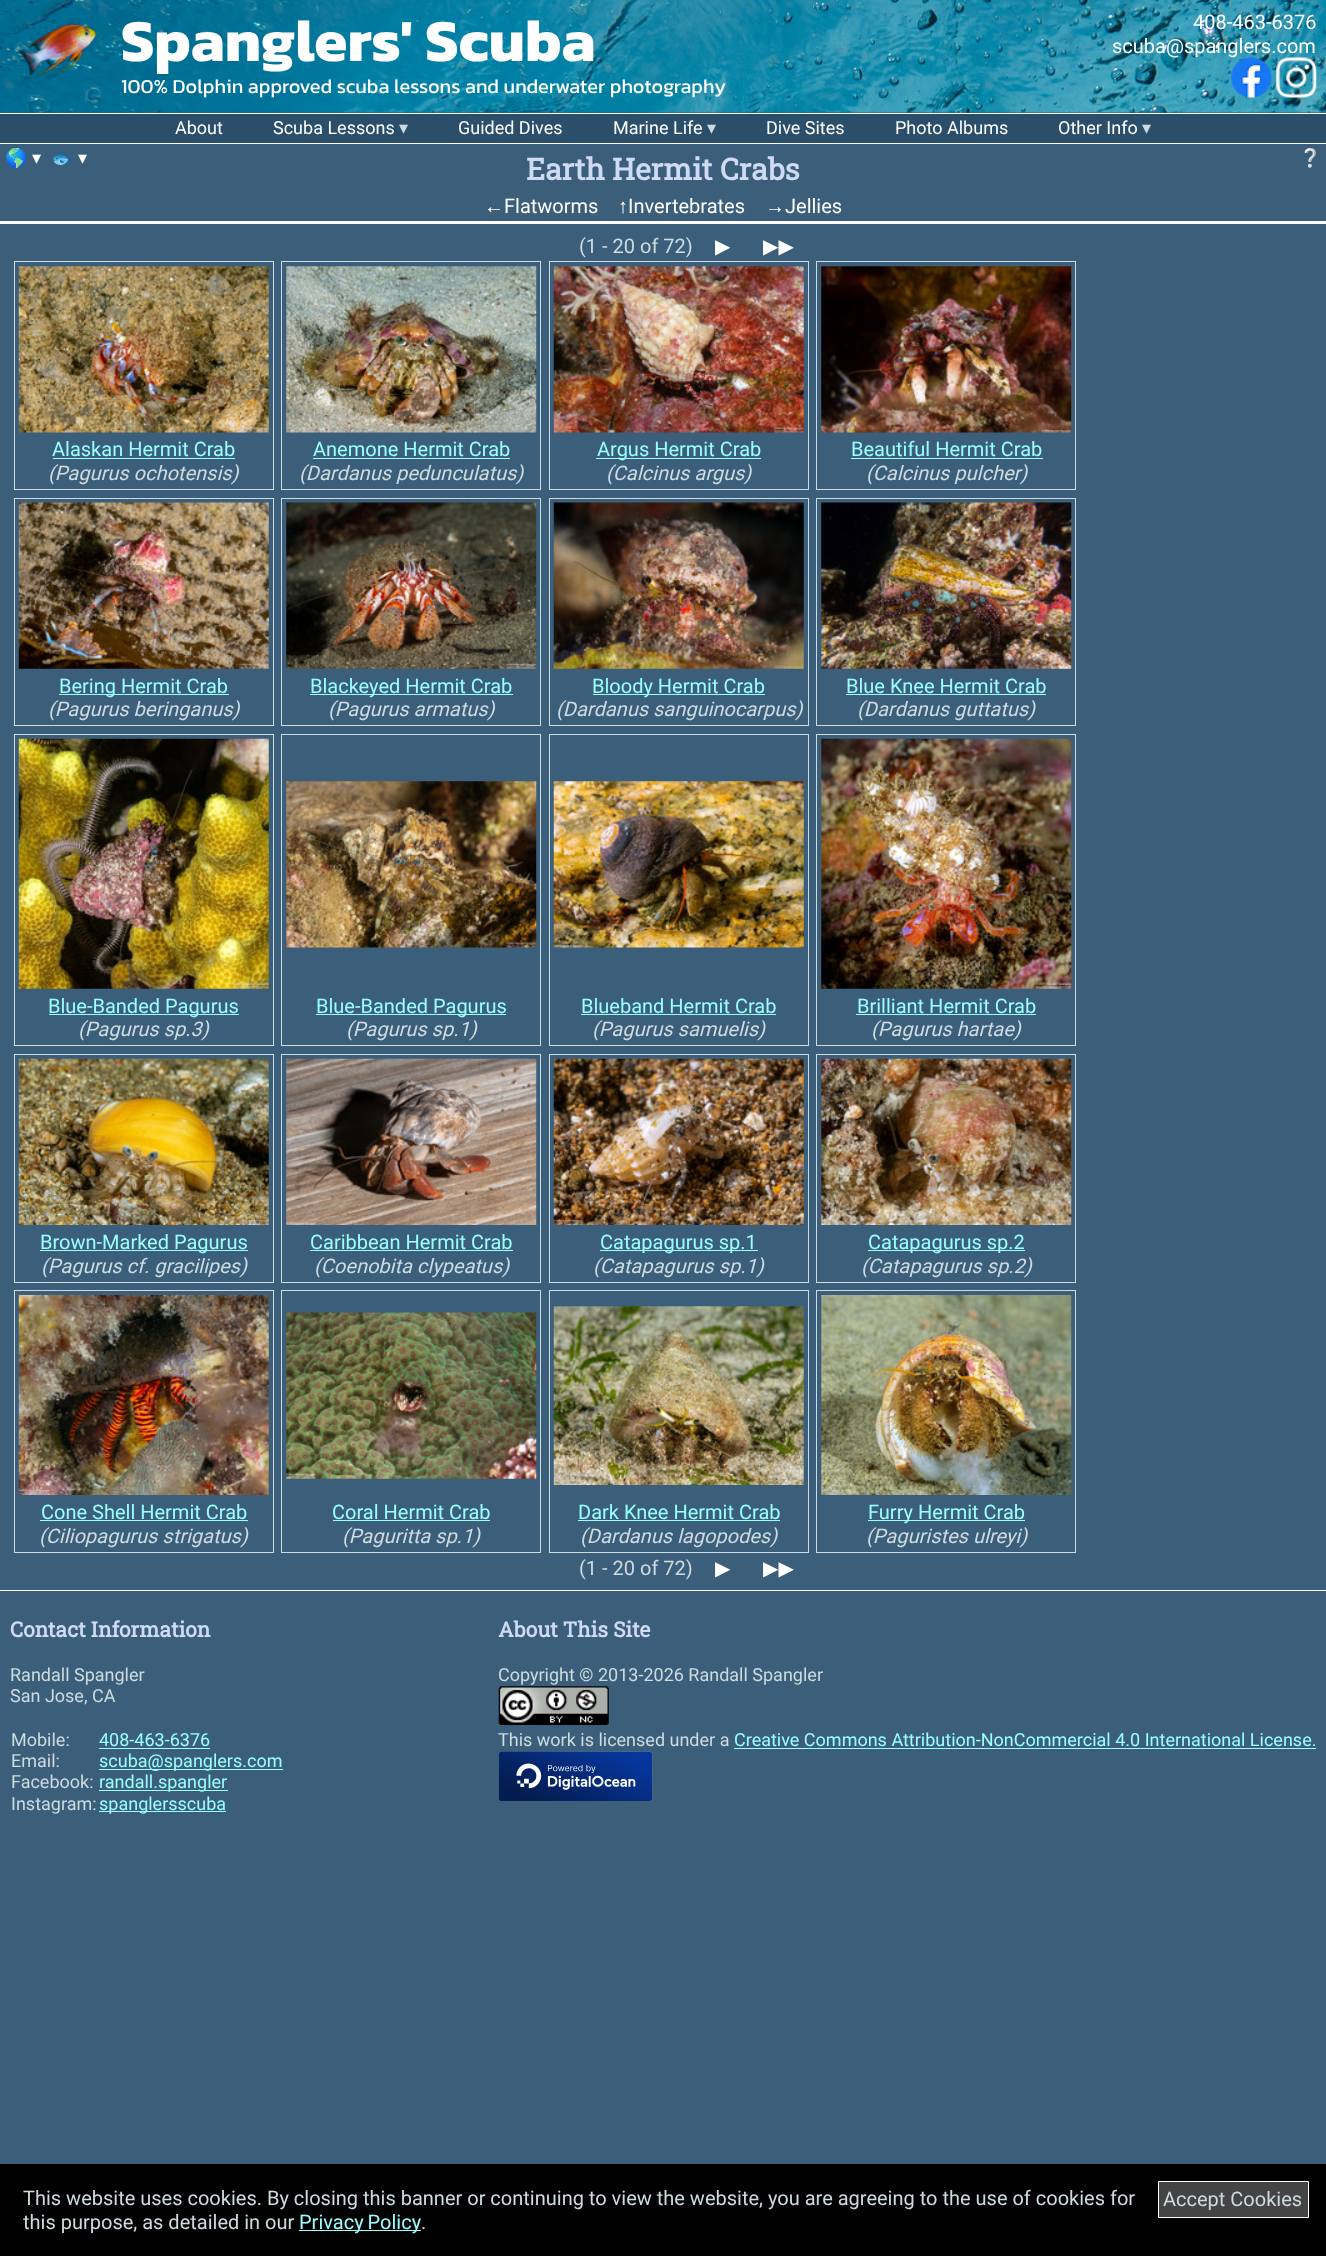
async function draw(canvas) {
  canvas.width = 1326;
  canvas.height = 2256;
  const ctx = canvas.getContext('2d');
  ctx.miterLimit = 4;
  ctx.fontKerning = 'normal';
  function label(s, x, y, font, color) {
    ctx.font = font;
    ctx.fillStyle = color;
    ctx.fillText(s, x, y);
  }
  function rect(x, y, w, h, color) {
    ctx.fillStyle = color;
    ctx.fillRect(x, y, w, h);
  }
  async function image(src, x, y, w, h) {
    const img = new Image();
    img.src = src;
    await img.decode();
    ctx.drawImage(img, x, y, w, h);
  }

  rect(0, 0, 1326, 2256, '#3b5f7b');
  await image('assets/img1.png', 0, 0, 1326, 113);
  await image('assets/img2.png', 16, 22, 81, 63);
  label('Spanglers\' Scuba', 121, 61, 'bold 60px Kanit', '#fff');
  label('100% Dolphin approved scuba lessons and underwater photography', 121, 93, '20px Kanit', '#fff');
  label('408-463-6376', 1193, 29, '20px Roboto', '#fff');
  label('scuba@spanglers.com', 1112, 53, '20px Roboto', '#fff');
  await image('assets/img3.png', 1231, 57, 41, 41);
  await image('assets/img4.png', 1276, 57, 41, 41);
  rect(0, 114, 1326, 29, '#2b4f6b');
  rect(0, 113, 1326, 1, '#fff');
  rect(0, 143, 1326, 1, '#fff');
  label('About', 175, 134, '18px Roboto', '#fff');
  label('Scuba Lessons', 273, 134, '18px Roboto', '#fff');
  label('▾', 399, 134, '18px DejaVu Sans', '#cedbdf');
  label('Guided Dives', 458, 134, '18px Roboto', '#fff');
  label('Marine Life', 613, 134, '18px Roboto', '#fff');
  label('▾', 707, 134, '18px DejaVu Sans', '#cedbdf');
  label('Dive Sites', 766, 134, '18px Roboto', '#fff');
  label('Photo Albums', 895, 134, '18px Roboto', '#fff');
  label('Other Info', 1058, 134, '18px Roboto', '#fff');
  label('▾', 1142, 134, '18px DejaVu Sans', '#cedbdf');
  rect(0, 221, 1326, 3, '#fff');
  label('🌎', 5, 164, '18px Noto Color Emoji', '#fff');
  label('▾', 32, 164, '18px DejaVu Sans', '#fff');
  label('🐟', 51, 164, '18px Noto Color Emoji', '#fff');
  label('▾', 78, 164, '18px DejaVu Sans', '#fff');
  label('Earth Hermit Crabs', 526, 180, 'bold 30px Roboto Slab', '#cedbf2');
  label('❔', 1299, 164, '18px Noto Color Emoji', '#fff');
  label('←', 484, 213, '20px Liberation Sans', '#fff');
  label('Flatworms', 504, 213, '20px Roboto', '#fff');
  label('↑', 618, 213, '20px Liberation Sans', '#fff');
  label('Invertebrates', 628, 213, '20px Roboto', '#fff');
  label('→', 765, 213, '20px Liberation Sans', '#fff');
  label('Jellies', 785, 213, '20px Roboto', '#fff');
  label('(1 - 20 of 72)', 579, 253, '20px Roboto', '#cedbdf');
  label('▶', 715, 253, '20px DejaVu Sans', '#fff');
  label('▶▶', 763, 253, '20px DejaVu Sans', '#fff');
  ctx.strokeStyle = '#cedbdf';
  ctx.strokeRect(14.5, 261.5, 259, 228);
  await image('assets/img5.png', 18, 266, 251, 167);
  label('Alaskan Hermit Crab', 52, 456, '20px Roboto', '#9ff');
  rect(53, 458, 182, 1, '#9ff');
  label('(Pagurus ochotensis)', 48, 480, 'italic 20px Roboto', '#cedbdf');
  ctx.strokeRect(281.5, 261.5, 259, 228);
  await image('assets/img6.png', 286, 266, 251, 167);
  label('Anemone Hermit Crab', 313, 456, '20px Roboto', '#9ff');
  rect(313, 458, 197, 1, '#9ff');
  label('(Dardanus pedunculatus)', 299, 480, 'italic 20px Roboto', '#cedbdf');
  ctx.strokeRect(549.5, 261.5, 259, 228);
  await image('assets/img7.png', 553, 266, 251, 167);
  rect(596, 458, 165, 1, '#9ff');
  label('Argus Hermit Crab', 597, 456, '20px Roboto', '#9ff');
  label('(Calcinus argus)', 606, 480, 'italic 20px Roboto', '#cedbdf');
  ctx.strokeRect(816.5, 261.5, 259, 228);
  await image('assets/img8.png', 821, 266, 251, 167);
  label('Beautiful Hermit Crab', 851, 456, '20px Roboto', '#9ff');
  rect(851, 458, 192, 1, '#9ff');
  label('(Calcinus pulcher)', 866, 480, 'italic 20px Roboto', '#cedbdf');
  ctx.strokeRect(14.5, 498.5, 259, 227);
  await image('assets/img9.png', 18, 502, 251, 167);
  rect(59, 694, 170, 1, '#9ff');
  label('Bering Hermit Crab', 59, 693, '20px Roboto', '#9ff');
  label('(Pagurus beringanus)', 48, 716, 'italic 20px Roboto', '#cedbdf');
  ctx.strokeRect(281.5, 498.5, 259, 227);
  await image('assets/img10.png', 286, 502, 251, 167);
  rect(310, 694, 203, 1, '#9ff');
  label('Blackeyed Hermit Crab', 310, 693, '20px Roboto', '#9ff');
  label('(Pagurus armatus)', 328, 716, 'italic 20px Roboto', '#cedbdf');
  ctx.strokeRect(549.5, 498.5, 259, 227);
  await image('assets/img11.png', 553, 502, 251, 167);
  rect(593, 694, 172, 1, '#9ff');
  label('Bloody Hermit Crab', 592, 693, '20px Roboto', '#9ff');
  label('(Dardanus sanguinocarpus)', 556, 716, 'italic 20px Roboto', '#cedbdf');
  ctx.strokeRect(816.5, 498.5, 259, 227);
  await image('assets/img12.png', 821, 502, 251, 167);
  label('Blue Knee Hermit Crab', 846, 693, '20px Roboto', '#9ff');
  rect(846, 694, 200, 1, '#9ff');
  label('(Dardanus guttatus)', 857, 716, 'italic 20px Roboto', '#cedbdf');
  ctx.strokeRect(14.5, 734.5, 259, 311);
  await image('assets/img13.png', 18, 738, 251, 251);
  rect(49, 1014, 190, 1, '#9ff');
  label('Blue-Banded Pagurus', 48, 1013, '20px Roboto', '#9ff');
  label('(Pagurus sp.3)', 78, 1036, 'italic 20px Roboto', '#cedbdf');
  ctx.strokeRect(281.5, 734.5, 259, 311);
  await image('assets/img14.png', 286, 781, 251, 167);
  rect(316, 1014, 190, 1, '#9ff');
  label('Blue-Banded Pagurus', 316, 1013, '20px Roboto', '#9ff');
  label('(Pagurus sp.1)', 346, 1036, 'italic 20px Roboto', '#cedbdf');
  ctx.strokeRect(549.5, 734.5, 259, 311);
  await image('assets/img15.png', 553, 781, 251, 167);
  label('Blueband Hermit Crab', 581, 1013, '20px Roboto', '#9ff');
  rect(581, 1014, 195, 1, '#9ff');
  label('(Pagurus samuelis)', 592, 1036, 'italic 20px Roboto', '#cedbdf');
  ctx.strokeRect(816.5, 734.5, 259, 311);
  await image('assets/img16.png', 821, 738, 251, 251);
  label('Brilliant Hermit Crab', 857, 1013, '20px Roboto', '#9ff');
  rect(856, 1014, 180, 1, '#9ff');
  label('(Pagurus hartae)', 871, 1036, 'italic 20px Roboto', '#cedbdf');
  ctx.strokeRect(14.5, 1054.5, 259, 228);
  await image('assets/img17.png', 18, 1058, 251, 167);
  rect(40, 1250, 208, 1, '#9ff');
  label('Brown-Marked Pagurus', 40, 1249, '20px Roboto', '#9ff');
  label('(Pagurus cf. gracilipes)', 41, 1273, 'italic 20px Roboto', '#cedbdf');
  ctx.strokeRect(281.5, 1054.5, 259, 228);
  await image('assets/img18.png', 286, 1058, 251, 167);
  label('Caribbean Hermit Crab', 310, 1249, '20px Roboto', '#9ff');
  rect(310, 1250, 203, 1, '#9ff');
  label('(Coenobita clypeatus)', 314, 1273, 'italic 20px Roboto', '#cedbdf');
  ctx.strokeRect(549.5, 1054.5, 259, 228);
  await image('assets/img19.png', 553, 1058, 251, 167);
  rect(600, 1250, 158, 1, '#9ff');
  label('Catapagurus sp.1', 600, 1249, '20px Roboto', '#9ff');
  label('(Catapagurus sp.1)', 593, 1273, 'italic 20px Roboto', '#cedbdf');
  ctx.strokeRect(816.5, 1054.5, 259, 228);
  await image('assets/img20.png', 821, 1058, 251, 167);
  rect(868, 1250, 157, 1, '#9ff');
  label('Catapagurus sp.2', 868, 1249, '20px Roboto', '#9ff');
  label('(Catapagurus sp.2)', 861, 1273, 'italic 20px Roboto', '#cedbdf');
  ctx.strokeRect(14.5, 1290.5, 259, 262);
  await image('assets/img21.png', 18, 1295, 251, 200);
  label('Cone Shell Hermit Crab', 41, 1519, '20px Roboto', '#9ff');
  rect(40, 1520, 208, 1, '#9ff');
  label('(Ciliopagurus strigatus)', 39, 1543, 'italic 20px Roboto', '#cedbdf');
  ctx.strokeRect(281.5, 1290.5, 259, 262);
  await image('assets/img22.png', 286, 1312, 251, 167);
  label('Coral Hermit Crab', 332, 1519, '20px Roboto', '#9ff');
  rect(333, 1520, 157, 1, '#9ff');
  label('(Paguritta sp.1)', 342, 1543, 'italic 20px Roboto', '#cedbdf');
  ctx.strokeRect(549.5, 1290.5, 259, 262);
  await image('assets/img23.png', 553, 1306, 251, 179);
  label('Dark Knee Hermit Crab', 578, 1519, '20px Roboto', '#9ff');
  rect(578, 1520, 202, 1, '#9ff');
  label('(Dardanus lagopodes)', 580, 1543, 'italic 20px Roboto', '#cedbdf');
  ctx.strokeRect(816.5, 1290.5, 259, 262);
  await image('assets/img24.png', 821, 1295, 251, 200);
  rect(868, 1520, 157, 1, '#9ff');
  label('Furry Hermit Crab', 868, 1519, '20px Roboto', '#9ff');
  label('(Paguristes ulreyi)', 866, 1543, 'italic 20px Roboto', '#cedbdf');
  label('(1 - 20 of 72)', 579, 1575, '20px Roboto', '#cedbdf');
  label('▶', 715, 1575, '20px DejaVu Sans', '#fff');
  label('▶▶', 763, 1575, '20px DejaVu Sans', '#fff');
  rect(0, 1590, 1326, 1, '#fff');
  label('Contact Information', 10, 1637, 'bold 21px Roboto Slab', '#cedbf2');
  label('Randall Spangler', 10, 1681, '18px Roboto', '#cedbdf');
  label('San Jose, CA', 10, 1702, '18px Roboto', '#cedbdf');
  label('Mobile:', 11, 1746, '18px Roboto', '#cedbdf');
  label('Email:', 11, 1767, '18px Roboto', '#cedbdf');
  label('Facebook:', 11, 1788, '18px Roboto', '#cedbdf');
  label('Instagram:', 11, 1810, '18px Roboto', '#cedbdf');
  label('408-463-6376', 99, 1746, '18px Roboto', '#9ff');
  rect(99, 1748, 111, 1, '#9ff');
  rect(99, 1769, 184, 1, '#9ff');
  label('scuba@spanglers.com', 99, 1767, '18px Roboto', '#9ff');
  rect(99, 1790, 129, 1, '#9ff');
  label('randall.spangler', 99, 1788, '18px Roboto', '#9ff');
  rect(99, 1811, 127, 1, '#9ff');
  label('spanglersscuba', 99, 1810, '18px Roboto', '#9ff');
  label('About This Site', 498, 1637, 'bold 21px Roboto Slab', '#cedbf2');
  label('Copyright © 2013-2026 Randall Spangler', 498, 1681, '18px Roboto', '#cedbdf');
  await image('assets/img25.png', 498, 1686, 111, 39);
  label('This work is licensed under a', 498, 1746, '18px Roboto', '#cedbdf');
  label('Creative Commons Attribution-NonCommercial 4.0 International License.', 734, 1746, '18px Roboto', '#9ff');
  rect(734, 1748, 582, 1, '#9ff');
  await image('assets/img26.png', 499, 1751, 154, 50);
  rect(0, 2164, 1326, 92, '#000');
  label('This website uses cookies. By closing this banner or continuing to view the website, you are agreeing to the use of cookies for', 23, 2205, '20px Roboto', '#cedbdf');
  label('this purpose, as detailed in our', 23, 2229, '20px Roboto', '#cedbdf');
  rect(299, 2230, 122, 1, '#9ff');
  ctx.wordSpacing = '-1px';
  label('Privacy Policy', 299, 2229, '20px Roboto', '#9ff');
  ctx.wordSpacing = '0px';
  label('.', 421, 2229, '20px Roboto', '#cedbdf');
  ctx.fillStyle = '#444';
  ctx.beginPath();
  ctx.rect(1158.5, 2181.5, 150, 36);
  ctx.fill();
  ctx.strokeStyle = '#fff';
  ctx.stroke();
  label('Accept Cookies', 1163, 2206, '20px Roboto', '#cedbdf');
}

draw(document.querySelector('canvas'));
